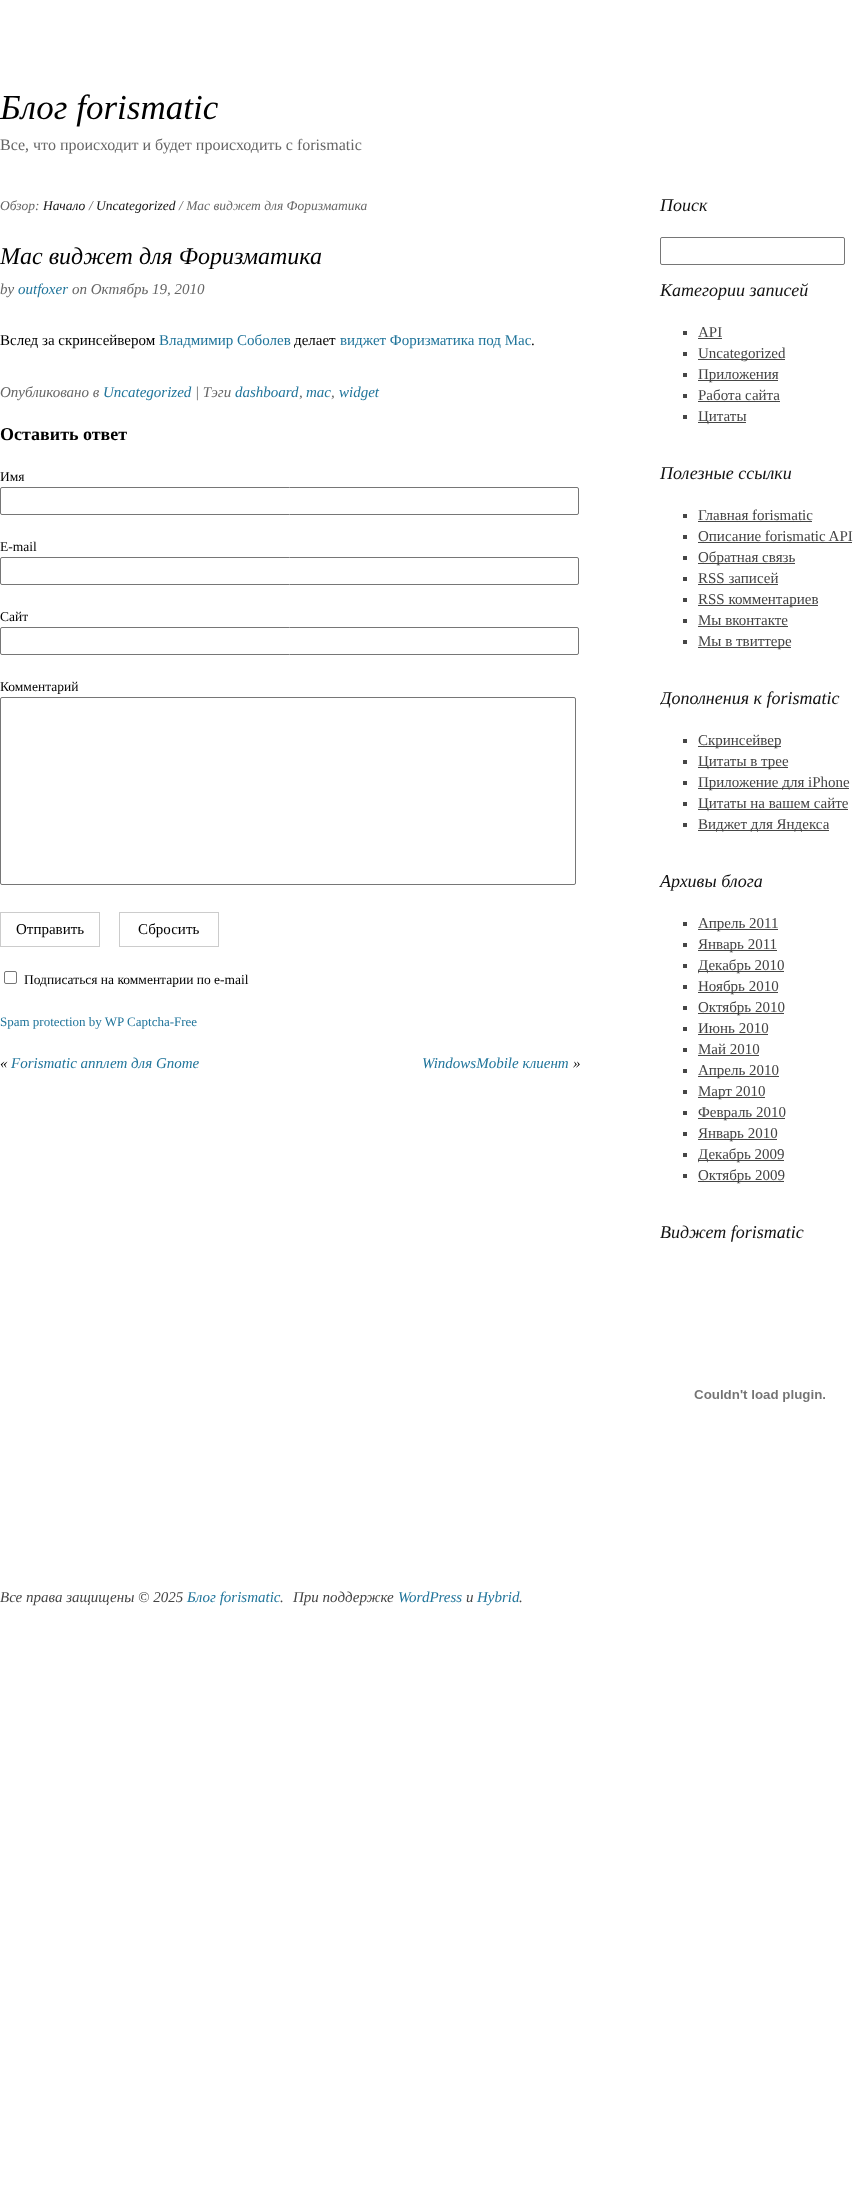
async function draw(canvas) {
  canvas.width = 861;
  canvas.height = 2209;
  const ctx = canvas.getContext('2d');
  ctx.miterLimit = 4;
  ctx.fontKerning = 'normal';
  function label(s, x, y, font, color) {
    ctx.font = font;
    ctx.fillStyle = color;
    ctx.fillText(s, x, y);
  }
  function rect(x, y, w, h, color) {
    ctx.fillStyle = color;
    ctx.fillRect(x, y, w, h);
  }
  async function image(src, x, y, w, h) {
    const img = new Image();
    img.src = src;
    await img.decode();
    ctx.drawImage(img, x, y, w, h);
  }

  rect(0, 0, 861, 2209, '#fff');
  label('Блог forismatic', 0, 119, 'italic 35px Liberation Serif', '#000');
  label('Все, что происходит и будет происходить с forismatic', 0, 150, '16px Liberation Serif', '#666');
  label('Обзор:', 0, 210, 'italic 13.5px Liberation Serif', '#666');
  label('Начало', 43, 210, 'italic 13.5px Liberation Serif', '#111');
  label('/', 89, 210, 'italic 13.5px Liberation Serif', '#666');
  label('Uncategorized', 96, 210, 'italic 13.5px Liberation Serif', '#111');
  label('/ Mac виджет для Форизматика', 179, 210, 'italic 13.5px Liberation Serif', '#666');
  label('Mac виджет для Форизматика', 0, 264, 'italic 24px Liberation Serif', '#000');
  label('by', 0, 294, 'italic 15px Liberation Serif', '#666');
  label('outfoxer', 18, 294, 'italic 15px Liberation Serif', '#21759b');
  label('on Октябрь 19, 2010', 72, 294, 'italic 15px Liberation Serif', '#666');
  label('Вслед за скринсейвером', 0, 345, '15px Liberation Serif', '#000');
  label('Владмимир Соболев', 159, 345, '15px Liberation Serif', '#21759b');
  label('делает', 294, 345, '15px Liberation Serif', '#000');
  label('виджет Форизматика под Mac', 340, 345, '15px Liberation Serif', '#21759b');
  label('.', 531, 345, '15px Liberation Serif', '#000');
  label('Опубликовано в', 0, 397, 'italic 15px Liberation Serif', '#666');
  label('Uncategorized', 103, 397, 'italic 15px Liberation Serif', '#21759b');
  label('| Тэги', 195, 397, 'italic 15px Liberation Serif', '#666');
  label('dashboard', 235, 397, 'italic 15px Liberation Serif', '#21759b');
  label(',', 299, 397, 'italic 15px Liberation Serif', '#666');
  label('mac', 306, 397, 'italic 15px Liberation Serif', '#21759b');
  label(',', 331, 397, 'italic 15px Liberation Serif', '#666');
  label('widget', 339, 397, 'italic 15px Liberation Serif', '#21759b');
  label('Оставить ответ', 0, 440, 'bold 18px Liberation Serif', '#000');
  label('Имя', 0, 481, '13.5px Liberation Serif', '#000');
  ctx.beginPath();
  ctx.roundRect(0.5, 487.5, 578, 27, 1.5);
  ctx.strokeStyle = '#767676';
  ctx.stroke();
  label('E-mail', 0, 551, '13.5px Liberation Serif', '#000');
  ctx.beginPath();
  ctx.roundRect(0.5, 557.5, 578, 27, 1.5);
  ctx.stroke();
  label('Сайт', 0, 621, '13.5px Liberation Serif', '#000');
  ctx.beginPath();
  ctx.roundRect(0.5, 627.5, 578, 27, 1.5);
  ctx.stroke();
  label('Комментарий', 0, 691, '13.5px Liberation Serif', '#000');
  ctx.beginPath();
  ctx.roundRect(0.5, 697.5, 575, 187, 1.5);
  ctx.stroke();
  ctx.strokeStyle = '#ccc';
  ctx.strokeRect(0.5, 912.5, 99, 34);
  label('Отправить', 16, 934, '15px Liberation Serif', '#000');
  ctx.strokeRect(119.5, 912.5, 99, 34);
  label('Сбросить', 138, 934, '15px Liberation Serif', '#000');
  ctx.beginPath();
  ctx.roundRect(4.5, 971.5, 12, 12, 1.5);
  ctx.strokeStyle = '#767676';
  ctx.stroke();
  label('Подписаться на комментарии по e-mail', 24, 984, '13.5px Liberation Serif', '#000');
  label('Spam protection by WP Captcha-Free', 0, 1026, '13px Liberation Serif', '#21759b');
  label('«', 0, 1068, 'italic 15px Liberation Serif', '#000');
  label('Forismatic апплет для Gnome', 11, 1068, 'italic 15px Liberation Serif', '#21759b');
  label('WindowsMobile клиент', 422, 1068, 'italic 15px Liberation Serif', '#21759b');
  label('»', 573, 1068, 'italic 15px Liberation Serif', '#000');
  label('Поиск', 660, 211, 'italic 18px Liberation Serif', '#111');
  ctx.beginPath();
  ctx.roundRect(660.5, 237.5, 184, 27, 1.5);
  ctx.stroke();
  label('Категории записей', 660, 296, 'italic 18px Liberation Serif', '#111');
  rect(683, 331, 4, 4, '#464646');
  label('API', 698, 337, '15px Liberation Serif', '#444');
  rect(698, 338, 24, 1, '#464646');
  rect(683, 352, 4, 4, '#464646');
  rect(698, 359, 87, 1, '#464646');
  label('Uncategorized', 698, 358, '15px Liberation Serif', '#444');
  rect(683, 373, 4, 4, '#464646');
  rect(698, 380, 80, 1, '#464646');
  label('Приложения', 698, 379, '15px Liberation Serif', '#444');
  rect(683, 394, 4, 4, '#464646');
  label('Работа сайта', 698, 400, '15px Liberation Serif', '#444');
  rect(698, 401, 82, 1, '#464646');
  rect(683, 415, 4, 4, '#464646');
  rect(698, 422, 48, 1, '#464646');
  label('Цитаты', 698, 421, '15px Liberation Serif', '#444');
  label('Полезные ссылки', 660, 479, 'italic 18px Liberation Serif', '#111');
  rect(683, 514, 4, 4, '#464646');
  label('Главная forismatic', 698, 520, '15px Liberation Serif', '#444');
  rect(698, 521, 114, 1, '#464646');
  rect(683, 535, 4, 4, '#464646');
  label('Описание forismatic API', 698, 541, '15px Liberation Serif', '#444');
  rect(698, 542, 154, 1, '#464646');
  rect(683, 556, 4, 4, '#464646');
  rect(698, 563, 97, 1, '#464646');
  label('Обратная связь', 698, 562, '15px Liberation Serif', '#444');
  rect(683, 577, 4, 4, '#464646');
  label('RSS записей', 698, 583, '15px Liberation Serif', '#444');
  rect(698, 584, 80, 1, '#464646');
  rect(683, 598, 4, 4, '#464646');
  rect(698, 605, 120, 1, '#464646');
  label('RSS комментариев', 698, 604, '15px Liberation Serif', '#444');
  rect(683, 619, 4, 4, '#464646');
  label('Мы вконтакте', 698, 625, '15px Liberation Serif', '#444');
  rect(698, 626, 90, 1, '#464646');
  rect(683, 640, 4, 4, '#464646');
  rect(698, 647, 93, 1, '#464646');
  label('Мы в твиттере', 698, 646, '15px Liberation Serif', '#444');
  ctx.save();
  ctx.beginPath();
  ctx.rect(660, 688, 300, 168);
  ctx.clip();
  label('Дополнения к forismatic', 660, 704, 'italic 18px Liberation Serif', '#111');
  ctx.restore();
  rect(683, 739, 4, 4, '#464646');
  rect(698, 746, 83, 1, '#464646');
  label('Скринсейвер', 698, 745, '15px Liberation Serif', '#444');
  rect(683, 760, 4, 4, '#464646');
  rect(698, 767, 90, 1, '#464646');
  label('Цитаты в трее', 698, 766, '15px Liberation Serif', '#444');
  rect(683, 781, 4, 4, '#464646');
  rect(698, 788, 151, 1, '#464646');
  label('Приложение для iPhone', 698, 787, '15px Liberation Serif', '#444');
  rect(683, 802, 4, 4, '#464646');
  rect(698, 809, 150, 1, '#464646');
  label('Цитаты на вашем сайте', 698, 808, '15px Liberation Serif', '#444');
  rect(683, 823, 4, 4, '#464646');
  rect(698, 830, 131, 1, '#464646');
  label('Виджет для Яндекса', 698, 829, '15px Liberation Serif', '#444');
  label('Архивы блога', 660, 887, 'italic 18px Liberation Serif', '#111');
  rect(683, 922, 4, 4, '#464646');
  rect(698, 929, 80, 1, '#464646');
  label('Апрель 2011', 698, 928, '15px Liberation Serif', '#444');
  rect(683, 943, 4, 4, '#464646');
  rect(698, 950, 79, 1, '#464646');
  label('Январь 2011', 698, 949, '15px Liberation Serif', '#444');
  rect(683, 964, 4, 4, '#464646');
  rect(698, 971, 86, 1, '#464646');
  label('Декабрь 2010', 698, 970, '15px Liberation Serif', '#444');
  rect(683, 985, 4, 4, '#464646');
  rect(698, 992, 80, 1, '#464646');
  label('Ноябрь 2010', 698, 991, '15px Liberation Serif', '#444');
  rect(683, 1006, 4, 4, '#464646');
  rect(698, 1013, 86, 1, '#464646');
  label('Октябрь 2010', 698, 1012, '15px Liberation Serif', '#444');
  rect(683, 1027, 4, 4, '#464646');
  label('Июнь 2010', 698, 1033, '15px Liberation Serif', '#444');
  rect(698, 1034, 70, 1, '#464646');
  rect(683, 1048, 4, 4, '#464646');
  label('Май 2010', 698, 1054, '15px Liberation Serif', '#444');
  rect(698, 1055, 61, 1, '#464646');
  rect(683, 1069, 4, 4, '#464646');
  rect(698, 1076, 81, 1, '#464646');
  label('Апрель 2010', 698, 1075, '15px Liberation Serif', '#444');
  rect(683, 1090, 4, 4, '#464646');
  rect(698, 1097, 67, 1, '#464646');
  label('Март 2010', 698, 1096, '15px Liberation Serif', '#444');
  rect(683, 1111, 4, 4, '#464646');
  rect(698, 1118, 87, 1, '#464646');
  label('Февраль 2010', 698, 1117, '15px Liberation Serif', '#444');
  rect(683, 1132, 4, 4, '#464646');
  rect(698, 1139, 79, 1, '#464646');
  label('Январь 2010', 698, 1138, '15px Liberation Serif', '#444');
  rect(683, 1153, 4, 4, '#464646');
  rect(698, 1160, 86, 1, '#464646');
  label('Декабрь 2009', 698, 1159, '15px Liberation Serif', '#444');
  rect(683, 1174, 4, 4, '#464646');
  rect(698, 1181, 86, 1, '#464646');
  label('Октябрь 2009', 698, 1180, '15px Liberation Serif', '#444');
  label('Виджет forismatic', 660, 1238, 'italic 18px Liberation Serif', '#111');
  await image('assets/img1.png', 694, 1390, 131, 12);
  label('Все права защищены © 2025', 0, 1602, 'italic 15px Liberation Serif', '#444');
  label('Блог forismatic', 187, 1602, 'italic 15px Liberation Serif', '#21759b');
  label('.', 280, 1602, 'italic 15px Liberation Serif', '#444');
  label('При поддержке', 293, 1602, 'italic 15px Liberation Serif', '#444');
  label('WordPress', 398, 1602, 'italic 15px Liberation Serif', '#21759b');
  label('и', 466, 1602, 'italic 15px Liberation Serif', '#444');
  label('Hybrid', 477, 1602, 'italic 15px Liberation Serif', '#21759b');
  label('.', 519, 1602, 'italic 15px Liberation Serif', '#444');
}

draw(document.querySelector('canvas'));
